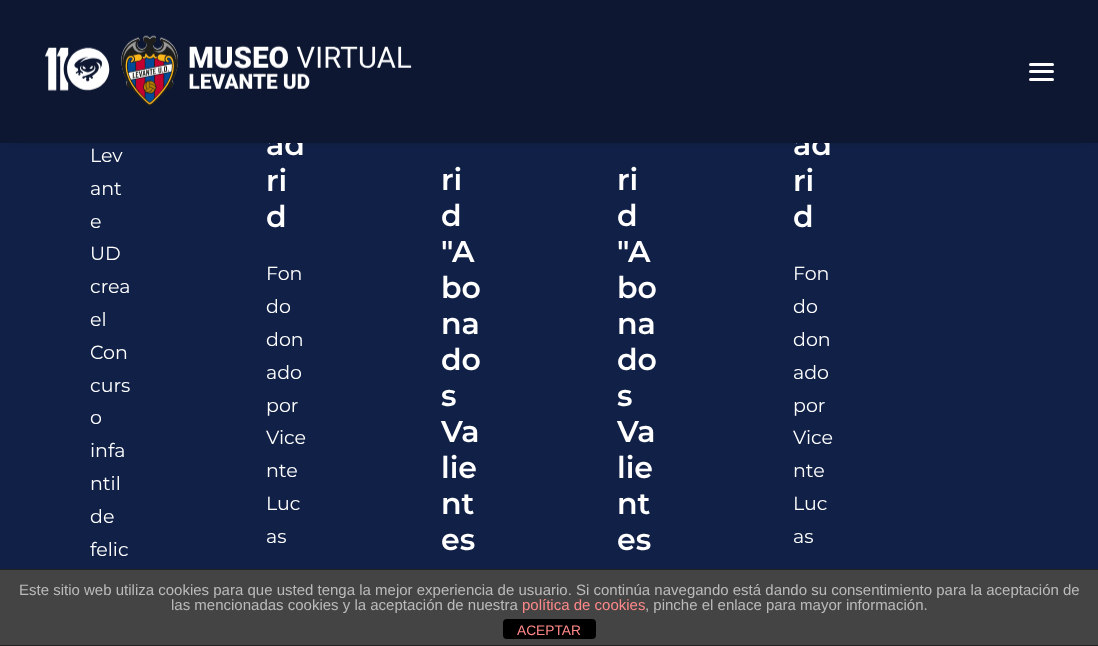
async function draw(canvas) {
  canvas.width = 1098;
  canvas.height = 646;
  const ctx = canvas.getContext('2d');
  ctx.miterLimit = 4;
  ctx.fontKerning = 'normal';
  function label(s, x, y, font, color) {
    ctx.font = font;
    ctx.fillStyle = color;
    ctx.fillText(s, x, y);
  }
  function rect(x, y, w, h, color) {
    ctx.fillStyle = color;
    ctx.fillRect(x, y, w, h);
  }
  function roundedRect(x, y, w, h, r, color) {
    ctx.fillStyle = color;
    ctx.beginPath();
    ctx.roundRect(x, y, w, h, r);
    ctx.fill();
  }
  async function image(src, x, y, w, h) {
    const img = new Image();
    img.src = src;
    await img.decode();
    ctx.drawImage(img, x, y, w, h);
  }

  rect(0, 0, 1098, 646, '#112046');
  ctx.fillStyle = '#00000099';
  ctx.filter = 'blur(6px)';
  ctx.beginPath();
  ctx.rect(13, 18, 1073, 117);
  ctx.fill();
  ctx.filter = 'none';
  label('ad', 266, 155, '600 30px Montserrat', '#fff');
  label('ad', 793, 155, '600 30px Montserrat', '#fff');
  rect(0, 0, 1098, 143, '#0d1732');
  await image('assets/img1.png', 45, 35, 367, 71);
  roundedRect(1029, 70, 25, 3, 1.5, '#fff');
  roundedRect(1029, 63, 25, 3, 1.5, '#fff');
  roundedRect(1029, 78, 25, 3, 1.5, '#fff');
  label('Lev', 90, 162, '19px Montserrat', '#fff');
  label('ant', 90, 195, '19px Montserrat', '#fff');
  label('e', 90, 228, '19px Montserrat', '#fff');
  label('UD', 90, 260, '19px Montserrat', '#fff');
  label('crea', 90, 293, '19px Montserrat', '#fff');
  label('el', 90, 326, '19px Montserrat', '#fff');
  label('Con', 90, 359, '19px Montserrat', '#fff');
  label('curs', 90, 392, '19px Montserrat', '#fff');
  label('o', 90, 424, '19px Montserrat', '#fff');
  label('infa', 90, 457, '19px Montserrat', '#fff');
  label('ntil', 90, 490, '19px Montserrat', '#fff');
  label('de', 90, 523, '19px Montserrat', '#fff');
  label('felic', 90, 556, '19px Montserrat', '#fff');
  label('ri', 266, 191, '600 30px Montserrat', '#fff');
  label('d', 266, 227, '600 30px Montserrat', '#fff');
  label('Fon', 266, 280, '19px Montserrat', '#fff');
  label('do', 266, 313, '19px Montserrat', '#fff');
  label('don', 266, 346, '19px Montserrat', '#fff');
  label('ado', 266, 379, '19px Montserrat', '#fff');
  label('por', 266, 412, '19px Montserrat', '#fff');
  label('Vice', 266, 444, '19px Montserrat', '#fff');
  label('nte', 266, 477, '19px Montserrat', '#fff');
  label('Luc', 266, 510, '19px Montserrat', '#fff');
  label('as', 266, 543, '19px Montserrat', '#fff');
  label('ri', 441, 190, '600 30px Montserrat', '#fff');
  label('d', 441, 226, '600 30px Montserrat', '#fff');
  label('"A', 441, 262, '600 30px Montserrat', '#fff');
  label('bo', 441, 298, '600 30px Montserrat', '#fff');
  label('na', 441, 334, '600 30px Montserrat', '#fff');
  label('do', 441, 370, '600 30px Montserrat', '#fff');
  label('s', 441, 406, '600 30px Montserrat', '#fff');
  label('Va', 441, 442, '600 30px Montserrat', '#fff');
  label('lie', 441, 478, '600 30px Montserrat', '#fff');
  label('nt', 441, 514, '600 30px Montserrat', '#fff');
  label('es', 441, 550, '600 30px Montserrat', '#fff');
  label('ri', 617, 190, '600 30px Montserrat', '#fff');
  label('d', 617, 226, '600 30px Montserrat', '#fff');
  label('"A', 617, 262, '600 30px Montserrat', '#fff');
  label('bo', 617, 298, '600 30px Montserrat', '#fff');
  label('na', 617, 334, '600 30px Montserrat', '#fff');
  label('do', 617, 370, '600 30px Montserrat', '#fff');
  label('s', 617, 406, '600 30px Montserrat', '#fff');
  label('Va', 617, 442, '600 30px Montserrat', '#fff');
  label('lie', 617, 478, '600 30px Montserrat', '#fff');
  label('nt', 617, 514, '600 30px Montserrat', '#fff');
  label('es', 617, 550, '600 30px Montserrat', '#fff');
  label('ri', 793, 191, '600 30px Montserrat', '#fff');
  label('d', 793, 227, '600 30px Montserrat', '#fff');
  label('Fon', 793, 280, '19px Montserrat', '#fff');
  label('do', 793, 313, '19px Montserrat', '#fff');
  label('don', 793, 346, '19px Montserrat', '#fff');
  label('ado', 793, 379, '19px Montserrat', '#fff');
  label('por', 793, 412, '19px Montserrat', '#fff');
  label('Vice', 793, 444, '19px Montserrat', '#fff');
  label('nte', 793, 477, '19px Montserrat', '#fff');
  label('Luc', 793, 510, '19px Montserrat', '#fff');
  label('as', 793, 543, '19px Montserrat', '#fff');
  rect(0, 570, 1098, 75, '#444');
  rect(0, 569, 1098, 1, '#222');
  rect(0, 645, 1098, 1, '#222');
  label('Este sitio web utiliza cookies para que usted tenga la mejor experiencia de usuario. Si continúa navegando está dando su consentimiento para la aceptación de', 19, 595, '15px Liberation Sans', '#bbb');
  label('las mencionadas cookies y la aceptación de nuestra', 171, 610, '15px Liberation Sans', '#bbb');
  label('política de cookies', 522, 610, '15px Liberation Sans', '#f88');
  label(', pinche el enlace para mayor información.', 645, 610, '15px Liberation Sans', '#bbb');
  roundedRect(503, 619, 93, 20, 4, '#000');
  label('ACEPTAR', 517, 635, '13.75px Liberation Sans', '#f88');
}

draw(document.querySelector('canvas'));
